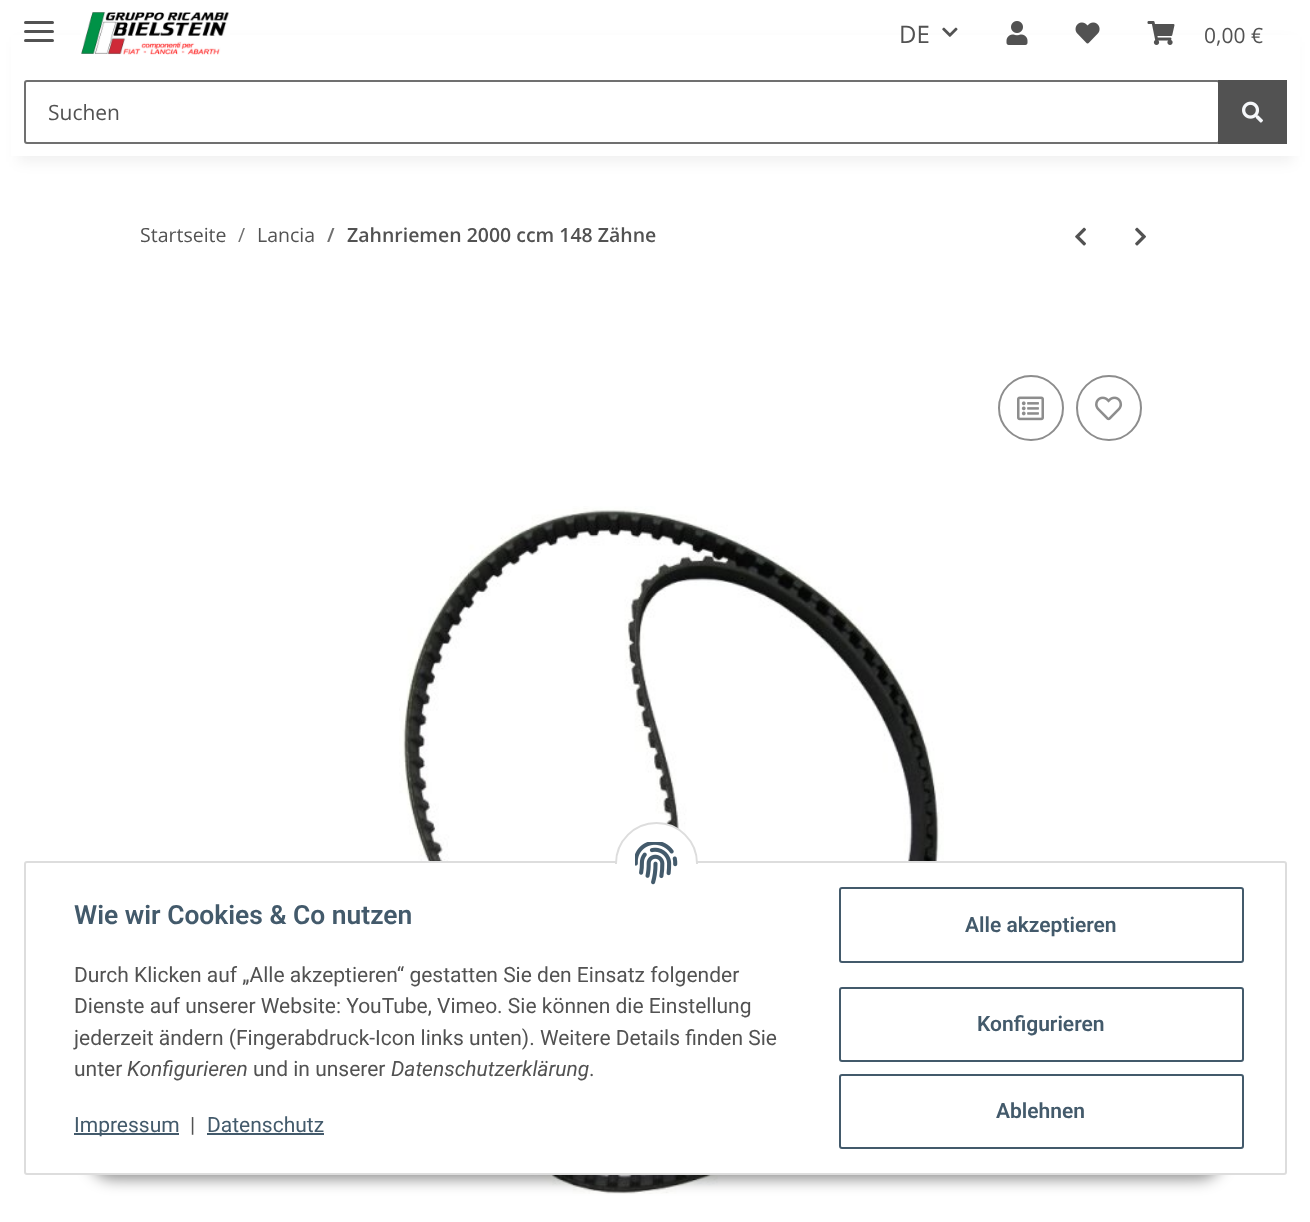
async function draw(canvas) {
  canvas.width = 1310;
  canvas.height = 1222;
  const ctx = canvas.getContext('2d');
  ctx.miterLimit = 4;
  ctx.fontKerning = 'normal';
  function label(s, x, y, font, color) {
    ctx.font = font;
    ctx.fillStyle = color;
    ctx.fillText(s, x, y);
  }
  function rect(x, y, w, h, color) {
    ctx.fillStyle = color;
    ctx.fillRect(x, y, w, h);
  }
  function roundedRect(x, y, w, h, r, color) {
    ctx.fillStyle = color;
    ctx.beginPath();
    ctx.roundRect(x, y, w, h, r);
    ctx.fill();
  }
  async function image(src, x, y, w, h) {
    const img = new Image();
    img.src = src;
    await img.decode();
    ctx.drawImage(img, x, y, w, h);
  }

  rect(0, 0, 1310, 1222, '#fff');
  ctx.fillStyle = '#0000000f';
  ctx.filter = 'blur(7px)';
  ctx.beginPath();
  ctx.rect(18, 42, 1275, 120);
  ctx.fill();
  ctx.filter = 'none';
  rect(11, 35, 1289, 121, '#fff');
  roundedRect(24, 30, 30, 3, 1.5, '#525252');
  roundedRect(24, 21, 30, 3, 1.5, '#525252');
  roundedRect(24, 39, 30, 3, 1.5, '#525252');
  await image('assets/img1.png', 81, 12, 149, 43);
  label('DE', 899, 43, '24px Open Sans', '#525252');
  await image('assets/img2.png', 942, 27, 16, 10);
  await image('assets/img3.png', 1006, 21, 22, 24);
  await image('assets/img4.png', 1075, 22, 25, 22);
  await image('assets/img5.png', 1147, 21, 28, 24);
  label('0,00 €', 1204, 43, '21px Open Sans', '#525252');
  ctx.beginPath();
  ctx.roundRect(25, 81, 1194, 62, 2);
  ctx.strokeStyle = '#707070';
  ctx.lineWidth = 2;
  ctx.stroke();
  label('Suchen', 48, 120, '21px Open Sans', '#525252');
  rect(1218, 80, 69, 64, '#525252');
  await image('assets/img6.png', 1242, 101, 21, 22);
  label('Startseite', 140, 242, '19.5px Open Sans', '#525252');
  label('/', 238, 242, '19.5px Open Sans', '#707070');
  label('Lancia', 257, 242, '19.5px Open Sans', '#525252');
  label('/', 327, 242, '600 19.5px Open Sans', '#707070');
  label('Zahnriemen 2000 ccm 148 Zähne', 347, 242, '600 19.5px Open Sans', '#525252');
  await image('assets/img7.png', 1075, 227, 11, 19);
  await image('assets/img8.png', 1135, 227, 11, 19);
  ctx.beginPath();
  ctx.arc(1031, 408, 32, 0, 2 * Math.PI);
  ctx.strokeStyle = '#8d8d8d';
  ctx.stroke();
  await image('assets/img9.png', 1017, 396, 27, 25);
  ctx.beginPath();
  ctx.arc(1109, 408, 32, 0, 2 * Math.PI);
  ctx.stroke();
  await image('assets/img10.png', 1095, 396, 28, 25);
  await image('assets/img11.png', 399, 506, 545, 688);
  ctx.fillStyle = '#00000073';
  ctx.filter = 'blur(7.5px)';
  ctx.beginPath();
  ctx.roundRect(89, 1131, 1134, 48, 24);
  ctx.fill();
  ctx.filter = 'none';
  ctx.fillStyle = '#fff';
  ctx.beginPath();
  ctx.roundRect(25, 862, 1261, 312, 2);
  ctx.fill();
  ctx.strokeStyle = '#ddd';
  ctx.stroke();
  ctx.beginPath();
  ctx.arc(656.5, 863.5, 40.5, 0, 2 * Math.PI);
  ctx.fill();
  ctx.stroke();
  rect(615, 864, 83, 41, '#fff');
  await image('assets/img12.png', 635, 842, 43, 43);
  label('Wie wir Cookies & Co nutzen', 74, 924, '600 26.4px Roboto', '#435a6b');
  label('Durch Klicken auf „Alle akzeptieren“ gestatten Sie den Einsatz folgender', 74, 982, '21px Roboto', '#525252');
  label('Dienste auf unserer Website: YouTube, Vimeo. Sie können die Einstellung', 74, 1013, '21px Roboto', '#525252');
  label('jederzeit ändern (Fingerabdruck-Icon links unten). Weitere Details finden Sie', 74, 1045, '21px Roboto', '#525252');
  label('unter', 74, 1076, '21px Roboto', '#525252');
  label('Konfigurieren', 127, 1076, 'italic 21px Roboto', '#525252');
  label('und in unserer', 253, 1076, '21px Roboto', '#525252');
  label('Datenschutzerklärung', 391, 1076, 'italic 21px Roboto', '#525252');
  label('.', 589, 1076, '21px Roboto', '#525252');
  rect(74, 1133, 105, 2, '#435a6b');
  label('Impressum', 74, 1132, '21px Roboto', '#435a6b');
  label('|', 190, 1132, '21px Roboto', '#525252');
  label('Datenschutz', 207, 1132, '21px Roboto', '#435a6b');
  rect(207, 1133, 117, 2, '#435a6b');
  ctx.beginPath();
  ctx.roundRect(840, 888, 403, 74, 2);
  ctx.strokeStyle = '#435a6b';
  ctx.stroke();
  label('Alle akzeptieren', 965, 932, '600 21px Roboto', '#435a6b');
  ctx.beginPath();
  ctx.roundRect(840, 988, 403, 73, 2);
  ctx.stroke();
  label('Konfigurieren', 977, 1031, '600 21px Roboto', '#435a6b');
  ctx.beginPath();
  ctx.roundRect(840, 1075, 403, 73, 2);
  ctx.stroke();
  label('Ablehnen', 996, 1118, '600 21px Roboto', '#435a6b');
}

draw(document.querySelector('canvas'));
